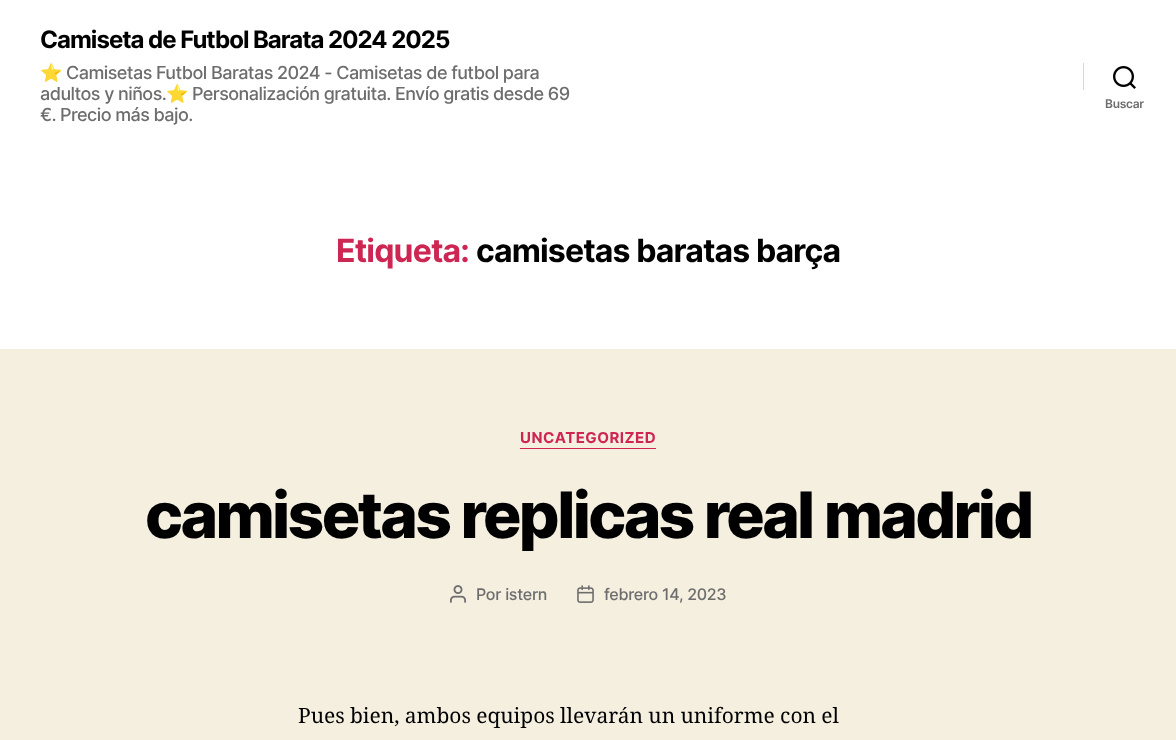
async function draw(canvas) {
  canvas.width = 1176;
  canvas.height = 740;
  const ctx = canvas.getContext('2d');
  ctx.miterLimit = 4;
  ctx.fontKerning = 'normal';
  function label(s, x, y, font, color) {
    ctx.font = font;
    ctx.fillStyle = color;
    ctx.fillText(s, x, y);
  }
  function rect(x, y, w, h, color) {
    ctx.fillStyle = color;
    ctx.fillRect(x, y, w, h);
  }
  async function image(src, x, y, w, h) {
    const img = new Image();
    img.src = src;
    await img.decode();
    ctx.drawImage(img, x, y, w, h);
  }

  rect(0, 0, 1176, 740, '#f5efe0');
  rect(0, 0, 1176, 349, '#fff');
  ctx.letterSpacing = '-1px';
  label('Camiseta de Futbol Barata 2024 2025', 40, 48, 'bold 24px Inter', '#000');
  ctx.letterSpacing = '-0.55px';
  label('⭐', 40, 79, '18px Noto Color Emoji', '#6d6d6d');
  label('Camisetas Futbol Baratas 2024 - Camisetas de futbol para', 66, 79, '500 18px Inter', '#6d6d6d');
  label('adultos y niños.', 40, 100, '500 18px Inter', '#6d6d6d');
  label('⭐', 166, 100, '18px Noto Color Emoji', '#6d6d6d');
  label('Personalización gratuita. Envío gratis desde 69', 192, 100, '500 18px Inter', '#6d6d6d');
  label('€. Precio más bajo.', 40, 121, '500 18px Inter', '#6d6d6d');
  rect(1083, 63, 1, 27, '#dcd7ca');
  await image('assets/img1.png', 1113, 66, 23, 23);
  ctx.letterSpacing = '-0.25px';
  label('Buscar', 1105, 108, '600 12px Inter', '#6d6d6d');
  ctx.letterSpacing = '-0.85px';
  label('Etiqueta:', 336, 262, 'bold 32px Inter', '#cd2653');
  label('camisetas baratas barça', 476, 262, 'bold 32px Inter', '#000');
  rect(520, 448, 136, 1, '#cd2653');
  ctx.letterSpacing = '0.5px';
  label('UNCATEGORIZED', 520, 443, 'bold 15px Inter', '#cd2653');
  ctx.letterSpacing = '-2.65px';
  label('camisetas replicas real madrid', 145, 538, '800 64px Inter', '#000');
  await image('assets/img2.png', 450, 585, 16, 18);
  ctx.letterSpacing = '-0.25px';
  label('Por istern', 476, 600, '500 16px Inter', '#6d6d6d');
  await image('assets/img3.png', 577, 585, 17, 18);
  label('febrero 14, 2023', 604, 600, '500 16px Inter', '#6d6d6d');
  ctx.letterSpacing = '0px';
  ctx.wordSpacing = '-0.25px';
  label('Pues bien, ambos equipos llevarán un uniforme con el', 298, 723, '21px Noto Serif', '#000');
}

draw(document.querySelector('canvas'));
